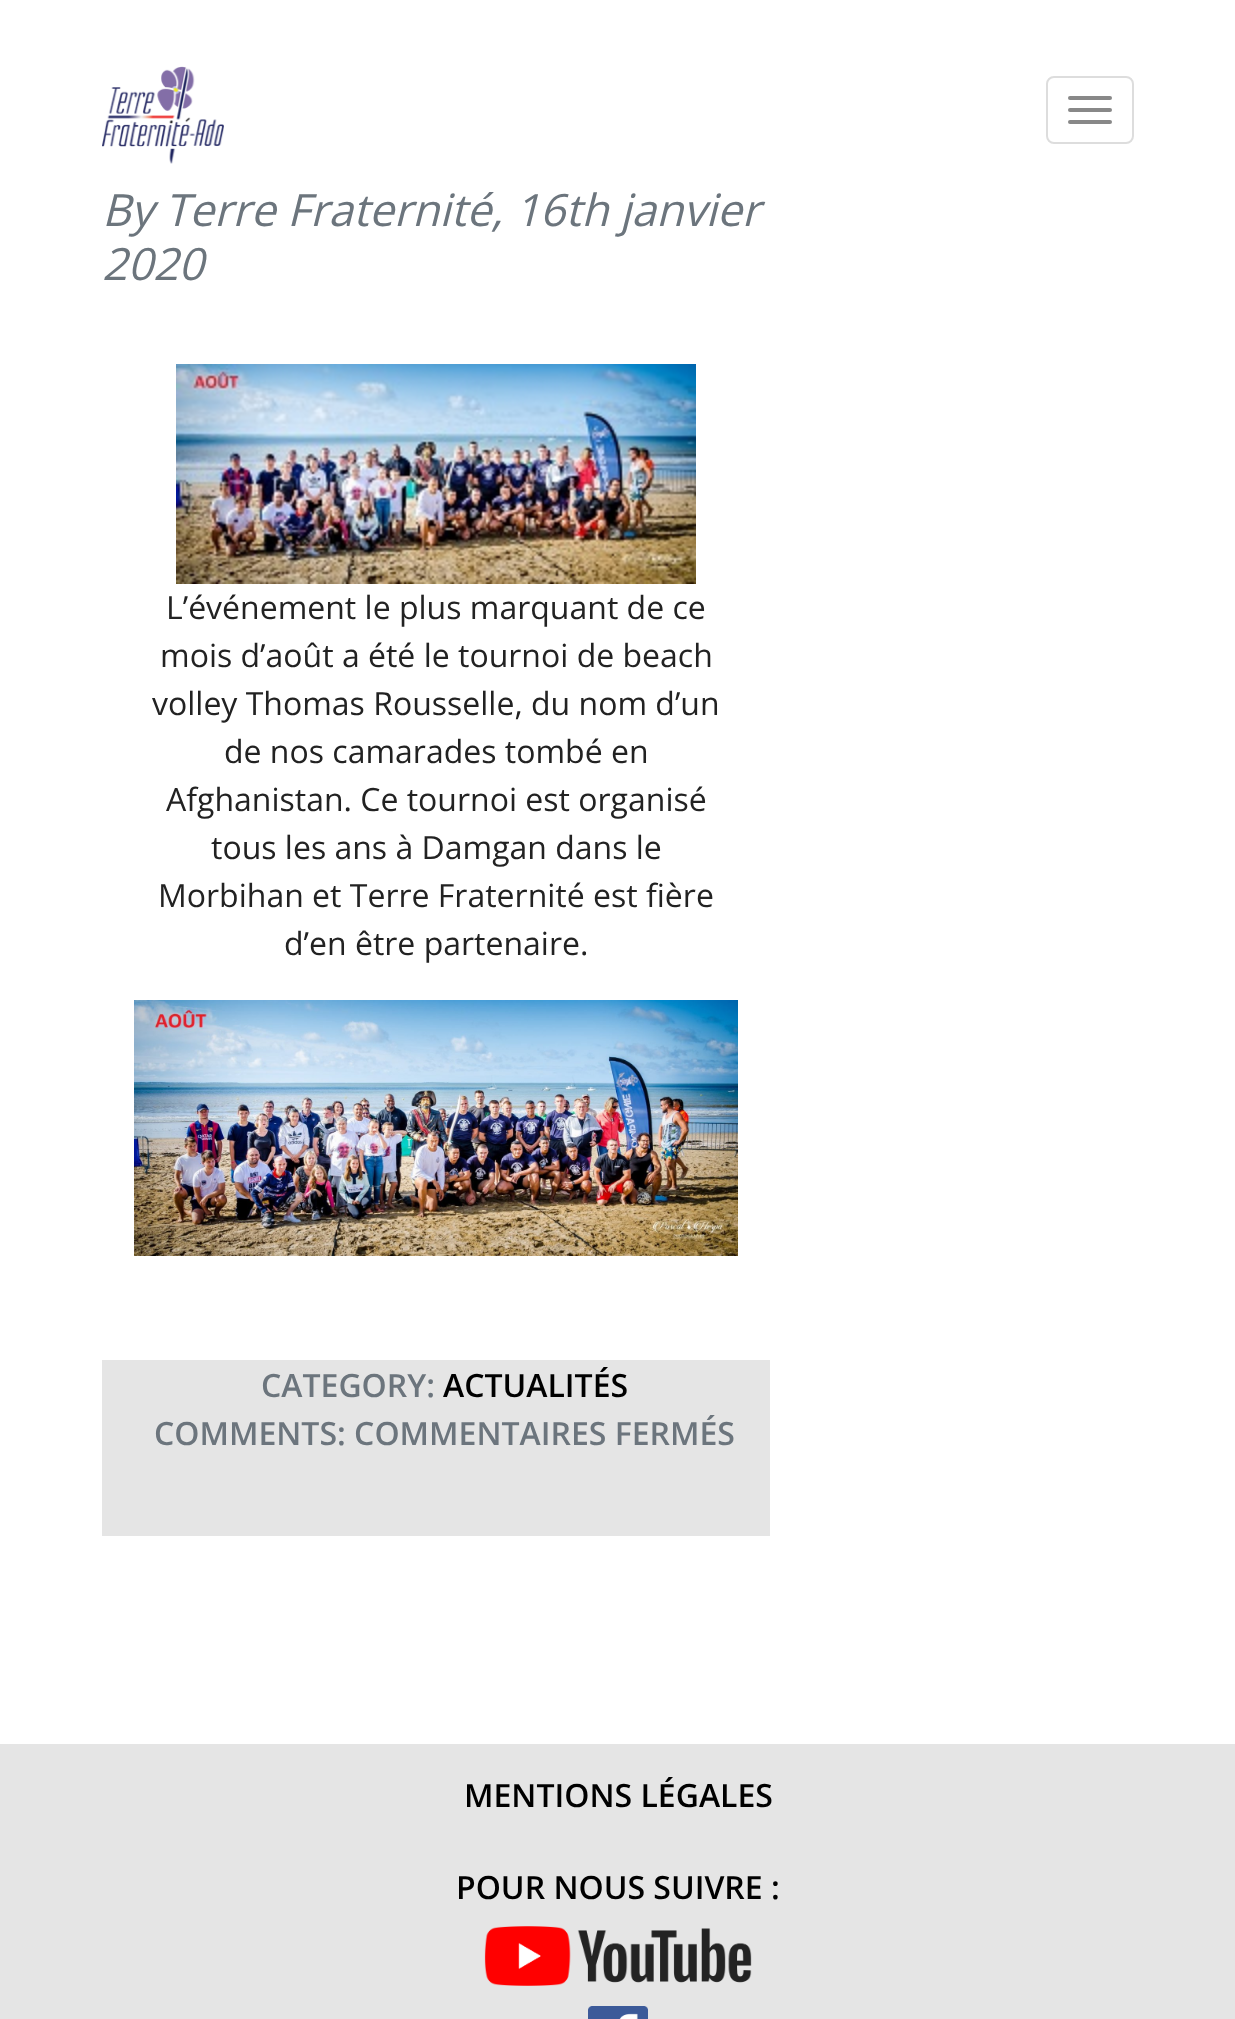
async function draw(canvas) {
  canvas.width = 1235;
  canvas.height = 2019;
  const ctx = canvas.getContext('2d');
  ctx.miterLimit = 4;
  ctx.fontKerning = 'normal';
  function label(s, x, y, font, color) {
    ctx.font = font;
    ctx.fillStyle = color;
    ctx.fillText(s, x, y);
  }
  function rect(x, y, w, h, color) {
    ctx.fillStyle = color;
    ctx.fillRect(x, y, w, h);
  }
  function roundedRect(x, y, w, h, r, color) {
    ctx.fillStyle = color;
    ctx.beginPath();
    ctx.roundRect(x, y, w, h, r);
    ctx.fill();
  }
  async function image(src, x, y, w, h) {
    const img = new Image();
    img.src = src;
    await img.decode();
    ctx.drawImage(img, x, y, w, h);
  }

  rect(0, 0, 1235, 2019, '#fff');
  label('By Terre Fraternité, 16th janvier', 102, 226, 'italic 44.5px Open Sans', '#6c757d');
  rect(489, 191, 5, 1, '#fff');
  await image('assets/img1.png', 102, 66, 122, 98);
  ctx.beginPath();
  ctx.roundRect(1047, 77, 86, 66, 7);
  ctx.strokeStyle = '#ddd';
  ctx.lineWidth = 2;
  ctx.stroke();
  roundedRect(1068, 96, 44, 4, 2, '#888');
  roundedRect(1068, 108, 44, 4, 2, '#888');
  roundedRect(1068, 120, 44, 4, 2, '#888');
  label('2020', 102, 280, 'italic 44.5px Open Sans', '#6c757d');
  await image('assets/img2.png', 176, 364, 520, 220);
  label('L’événement le plus marquant de ce', 166, 619, '32px Open Sans', '#222');
  label('mois d’août a été le tournoi de beach', 160, 667, '32px Open Sans', '#222');
  label('volley Thomas Rousselle, du nom d’un', 152, 715, '32px Open Sans', '#222');
  label('de nos camarades tombé en', 224, 763, '32px Open Sans', '#222');
  label('Afghanistan. Ce tournoi est organisé', 166, 811, '32px Open Sans', '#222');
  label('tous les ans à Damgan dans le', 211, 859, '32px Open Sans', '#222');
  label('Morbihan et Terre Fraternité est fière', 158, 907, '32px Open Sans', '#222');
  label('d’en être partenaire.', 284, 955, '32px Open Sans', '#222');
  await image('assets/img3.png', 134, 1000, 604, 256);
  rect(102, 1360, 668, 176, '#e5e5e5');
  label('CATEGORY:', 261, 1397, '600 32px Open Sans', '#6c757d');
  label('ACTUALITÉS', 443, 1397, '600 32px Open Sans', '#000');
  label('COMMENTS: COMMENTAIRES FERMÉS', 154, 1445, '600 32px Open Sans', '#6c757d');
  rect(0, 1744, 1235, 275, '#e5e5e5');
  label('MENTIONS LÉGALES', 464, 1807, '600 32px Open Sans', '#000');
  label('POUR NOUS SUIVRE :', 456, 1899, '600 32px Open Sans', '#000');
  await image('assets/img4.png', 484, 1926, 268, 60);
  await image('assets/img5.png', 588, 2006, 60, 13);
}

draw(document.querySelector('canvas'));
